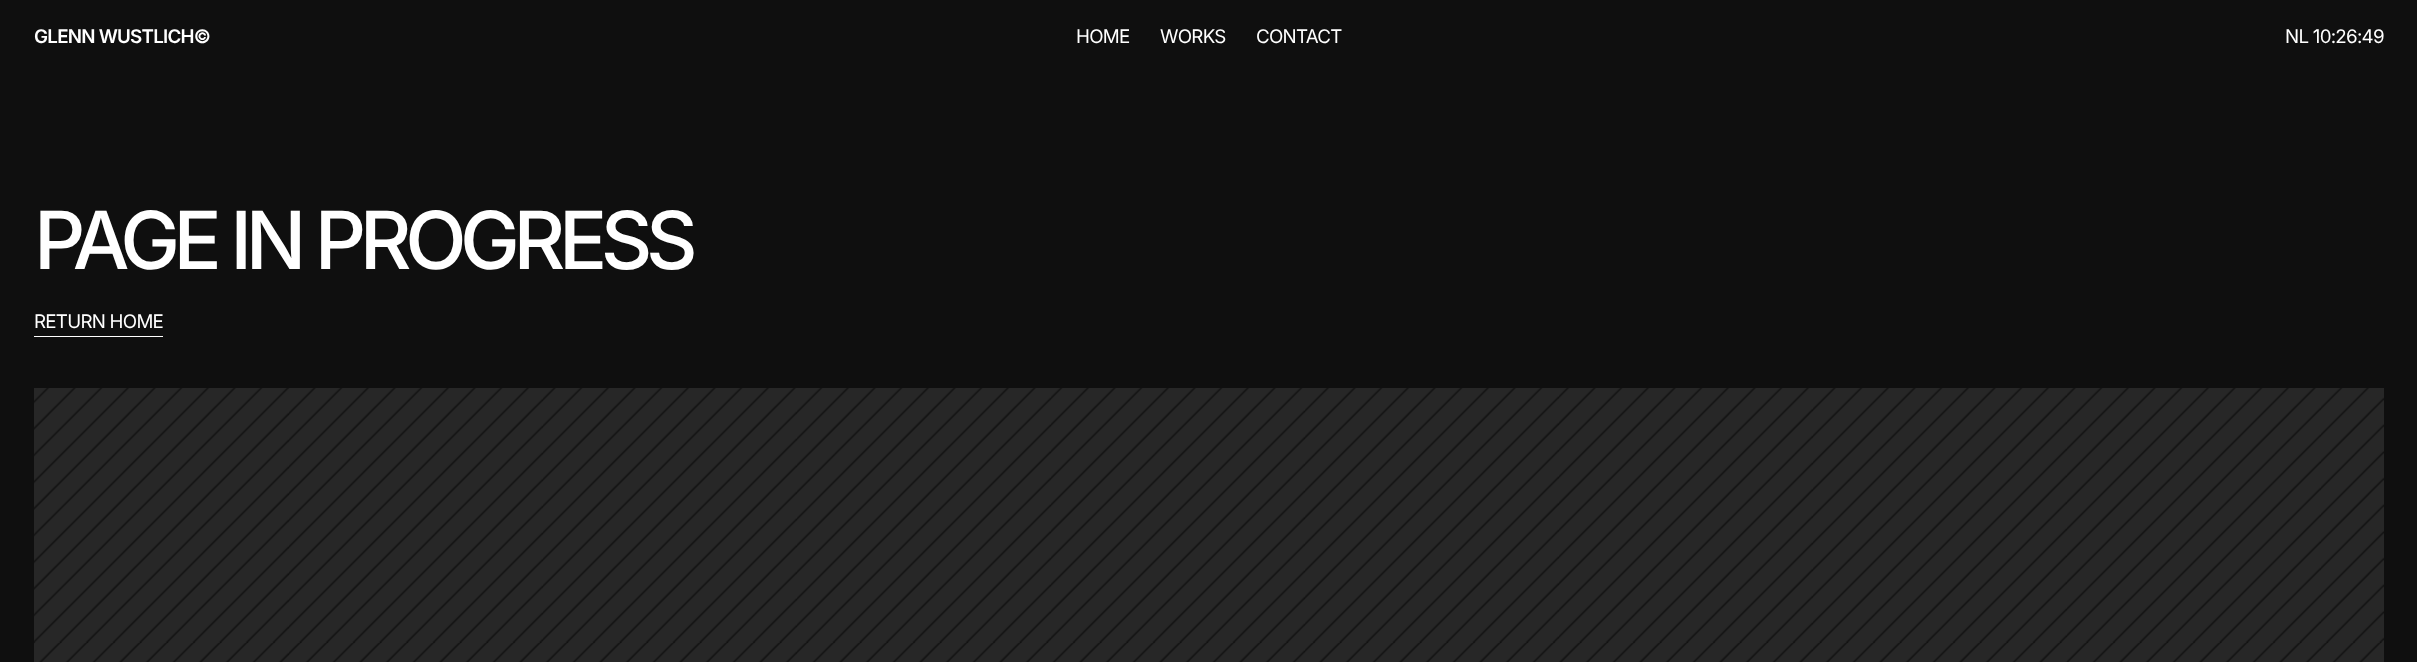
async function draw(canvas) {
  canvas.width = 2417;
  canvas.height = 662;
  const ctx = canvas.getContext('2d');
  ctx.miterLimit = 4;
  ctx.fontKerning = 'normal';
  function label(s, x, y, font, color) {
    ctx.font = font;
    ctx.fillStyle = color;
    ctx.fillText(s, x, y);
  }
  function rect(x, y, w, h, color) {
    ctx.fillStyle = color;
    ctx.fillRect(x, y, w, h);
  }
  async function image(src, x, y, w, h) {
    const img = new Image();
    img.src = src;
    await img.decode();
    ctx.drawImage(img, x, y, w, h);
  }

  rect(0, 0, 2417, 662, '#0f0f0f');
  ctx.letterSpacing = '-0.75px';
  label('GLENN WUSTLICH©', 34, 43, '600 18.75px Inter', '#fff');
  label('HOME', 1076, 43, '18.75px Inter', '#fff');
  label('WORKS', 1160, 43, '18.75px Inter', '#fff');
  label('CONTACT', 1256, 43, '18.75px Inter', '#fff');
  label('NL 10:26:49', 2285, 43, '18.75px Inter', '#fff');
  ctx.letterSpacing = '-6.4px';
  label('PAGE IN PROGRESS', 34, 269, '500 80px Inter', '#fff');
  ctx.letterSpacing = '-0.75px';
  label('RETURN HOME', 34, 328, '18.75px Inter', '#fff');
  rect(34, 336, 129, 1, '#fff');
  await image('assets/img1.png', 34, 388, 2350, 274);
}

draw(document.querySelector('canvas'));
